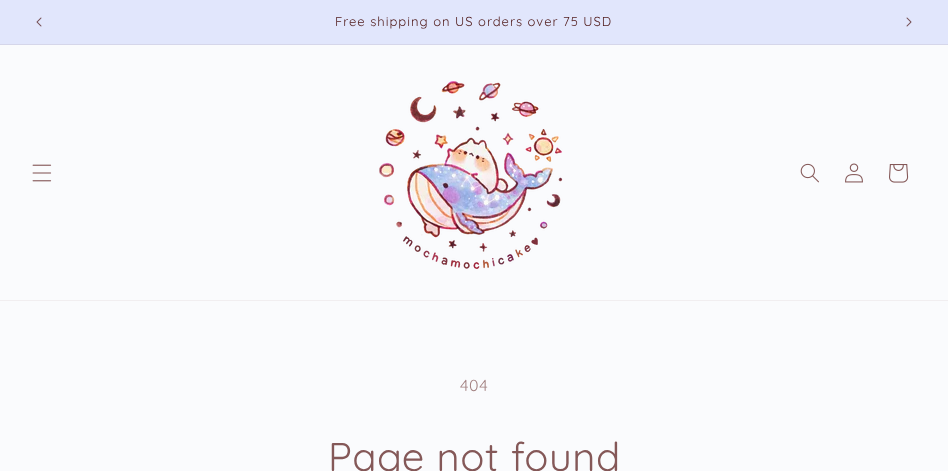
async function draw(canvas) {
  canvas.width = 948;
  canvas.height = 471;
  const ctx = canvas.getContext('2d');
  ctx.miterLimit = 4;
  ctx.fontKerning = 'normal';
  function label(s, x, y, font, color) {
    ctx.font = font;
    ctx.fillStyle = color;
    ctx.fillText(s, x, y);
  }
  function rect(x, y, w, h, color) {
    ctx.fillStyle = color;
    ctx.fillRect(x, y, w, h);
  }
  async function image(src, x, y, w, h) {
    const img = new Image();
    img.src = src;
    await img.decode();
    ctx.drawImage(img, x, y, w, h);
  }

  rect(0, 0, 948, 471, '#fafbfd');
  rect(0, 0, 948, 44, '#e1e6fc');
  rect(0, 44, 948, 1, '#d5d6ea');
  await image('assets/img1.png', 36, 17, 6, 10);
  ctx.letterSpacing = '1px';
  label('Free shipping on US orders over 75 USD', 335, 26, '13px Quicksand', '#511c1c');
  await image('assets/img2.png', 906, 17, 6, 10);
  rect(0, 300, 948, 1, '#f1eef0');
  await image('assets/img3.png', 32, 164, 20, 18);
  await image('assets/img4.png', 379, 81, 184, 188);
  await image('assets/img5.png', 800, 163, 19, 20);
  await image('assets/img6.png', 845, 163, 18, 20);
  await image('assets/img7.png', 889, 164, 20, 19);
  ctx.letterSpacing = '0.6px';
  label('404', 460, 391, '16px Quicksand', '#a28181');
  label('Page not found', 328, 471, '40px Quicksand', '#845858');
}

draw(document.querySelector('canvas'));
